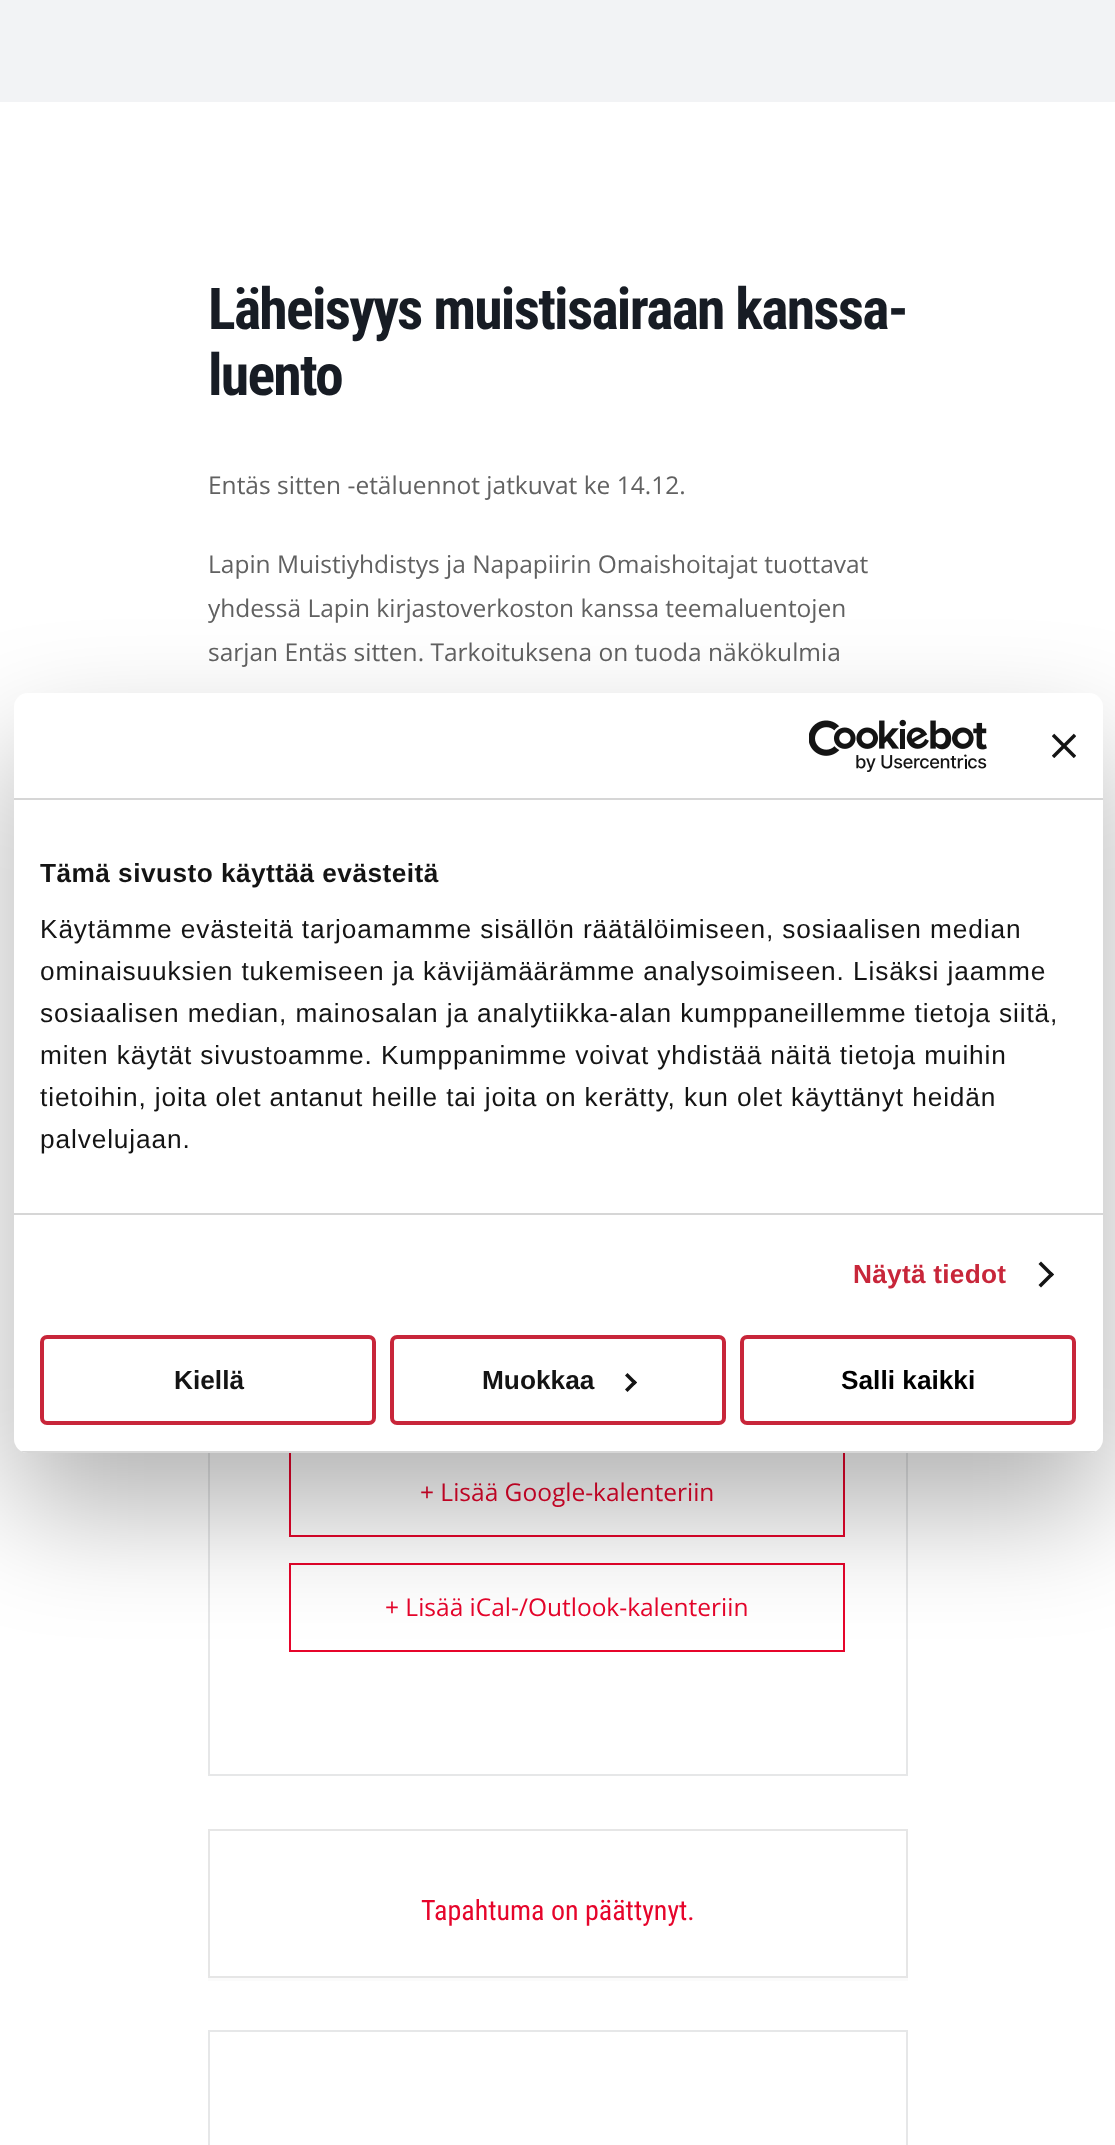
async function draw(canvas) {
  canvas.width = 1115;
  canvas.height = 2145;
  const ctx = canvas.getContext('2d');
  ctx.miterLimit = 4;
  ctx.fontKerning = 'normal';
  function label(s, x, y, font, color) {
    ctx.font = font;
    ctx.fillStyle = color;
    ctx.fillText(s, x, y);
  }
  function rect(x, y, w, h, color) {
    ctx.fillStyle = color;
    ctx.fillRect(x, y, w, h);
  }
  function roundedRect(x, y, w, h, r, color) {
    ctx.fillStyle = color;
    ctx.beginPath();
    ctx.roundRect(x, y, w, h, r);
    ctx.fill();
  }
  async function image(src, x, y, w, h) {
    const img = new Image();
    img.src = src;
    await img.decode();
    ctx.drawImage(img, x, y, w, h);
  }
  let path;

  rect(0, 0, 1115, 2145, '#fff');
  rect(0, 0, 1115, 102, '#f2f3f5');
  ctx.letterSpacing = '-1.75px';
  label('Läheisyys muistisairaan kanssa-', 208, 329, 'bold 57.75px Roboto Condensed', '#171c24');
  label('luento', 208, 395, 'bold 57.75px Roboto Condensed', '#171c24');
  ctx.letterSpacing = '0px';
  label('Entäs sitten -etäluennot jatkuvat ke 14.12.', 208, 494, '24.5px Open Sans', '#616161');
  label('Lapin Muistiyhdistys ja Napapiirin Omaishoitajat tuottavat', 208, 573, '24.5px Open Sans', '#616161');
  label('yhdessä Lapin kirjastoverkoston kanssa teemaluentojen', 208, 617, '24.5px Open Sans', '#616161');
  label('sarjan Entäs sitten. Tarkoituksena on tuoda näkökulmia', 208, 661, '24.5px Open Sans', '#616161');
  ctx.strokeStyle = '#e6e7e8';
  ctx.lineWidth = 2;
  ctx.strokeRect(209, 1350, 698, 425);
  ctx.strokeStyle = '#e6052b';
  ctx.strokeRect(290, 1448, 554, 88);
  label('+ Lisää Google-kalenteriin', 420, 1501, '24.5px Open Sans', '#e6052b');
  ctx.strokeRect(290, 1564, 554, 87);
  label('+ Lisää iCal-/Outlook-kalenteriin', 385, 1616, '24.5px Open Sans', '#e6052b');
  ctx.fillStyle = '#fbfbfb';
  path = new Path2D('M208 1832V1981H908V1978H208Z');
  ctx.fill(path);
  ctx.strokeStyle = '#e6e6e6';
  ctx.strokeRect(209, 1830, 698, 147);
  label('Tapahtuma on päättynyt.', 421, 1920, '28px Roboto Condensed', '#e6052b');
  ctx.strokeStyle = '#e6e7e8';
  ctx.strokeRect(209, 2031, 698, 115);
  ctx.fillStyle = '#0000004d';
  ctx.filter = 'blur(59.5px)';
  ctx.beginPath();
  ctx.roundRect(14, 749, 1089, 760, 14);
  ctx.fill();
  ctx.filter = 'none';
  roundedRect(14, 693, 1089, 760, 14, '#fff');
  rect(14, 798, 1089, 2, '#d6d6d6');
  await image('assets/img1.png', 809, 719, 178, 53);
  await image('assets/img2.png', 1052, 733, 24, 25);
  rect(14, 1213, 1089, 2, '#d6d6d6');
  ctx.letterSpacing = '0.45px';
  label('Tämä sivusto käyttää evästeitä', 40, 882, 'bold 26.25px Liberation Sans', '#141414');
  ctx.letterSpacing = '0.88px';
  label('Käytämme evästeitä tarjoamamme sisällön räätälöimiseen, sosiaalisen median', 40, 938, '26.25px Liberation Sans', '#141414');
  label('ominaisuuksien tukemiseen ja kävijämäärämme analysoimiseen. Lisäksi jaamme', 40, 980, '26.25px Liberation Sans', '#141414');
  label('sosiaalisen median, mainosalan ja analytiikka-alan kumppaneillemme tietoja siitä,', 40, 1022, '26.25px Liberation Sans', '#141414');
  label('miten käytät sivustoamme. Kumppanimme voivat yhdistää näitä tietoja muihin', 40, 1064, '26.25px Liberation Sans', '#141414');
  label('tietoihin, joita olet antanut heille tai joita on kerätty, kun olet käyttänyt heidän', 40, 1106, '26.25px Liberation Sans', '#141414');
  label('palvelujaan.', 40, 1148, '26.25px Liberation Sans', '#141414');
  ctx.letterSpacing = '0.25px';
  label('Näytä tiedot', 853, 1283, 'bold 26.25px Liberation Sans', '#c8263a');
  ctx.fillStyle = '#141414';
  path = new Path2D('M1041 1261.5L1054 1274.5L1051.5 1277L1038.5 1264Z');
  ctx.fill(path);
  path = new Path2D('M1051.5 1272L1054 1274.5L1041 1287.5L1038.5 1285Z');
  ctx.fill(path);
  ctx.save();
  ctx.beginPath();
  ctx.roundRect(14, 693, 1089, 760, 14);
  ctx.clip();
  rect(14, 1451, 1089, 2, '#d6d6d6');
  ctx.restore();
  ctx.beginPath();
  ctx.roundRect(42, 1337, 332, 86, 5);
  ctx.strokeStyle = '#c8263a';
  ctx.lineWidth = 4;
  ctx.stroke();
  ctx.letterSpacing = '0px';
  label('Kiellä', 174, 1389, 'bold 26.25px Liberation Sans', '#141414');
  ctx.beginPath();
  ctx.roundRect(392, 1337, 332, 86, 5);
  ctx.stroke();
  label('Muokkaa', 482, 1389, 'bold 26.25px Liberation Sans', '#141414');
  path = new Path2D('M627.5 1373L637 1382.5L634.5 1385L625 1375.5Z');
  ctx.fill(path);
  path = new Path2D('M634.5 1380L637 1382.5L627.5 1392L625 1389.5Z');
  ctx.fill(path);
  ctx.beginPath();
  ctx.roundRect(742, 1337, 332, 86, 5);
  ctx.stroke();
  label('Salli kaikki', 841, 1389, 'bold 26.25px Liberation Sans', '#000');
}

draw(document.querySelector('canvas'));
